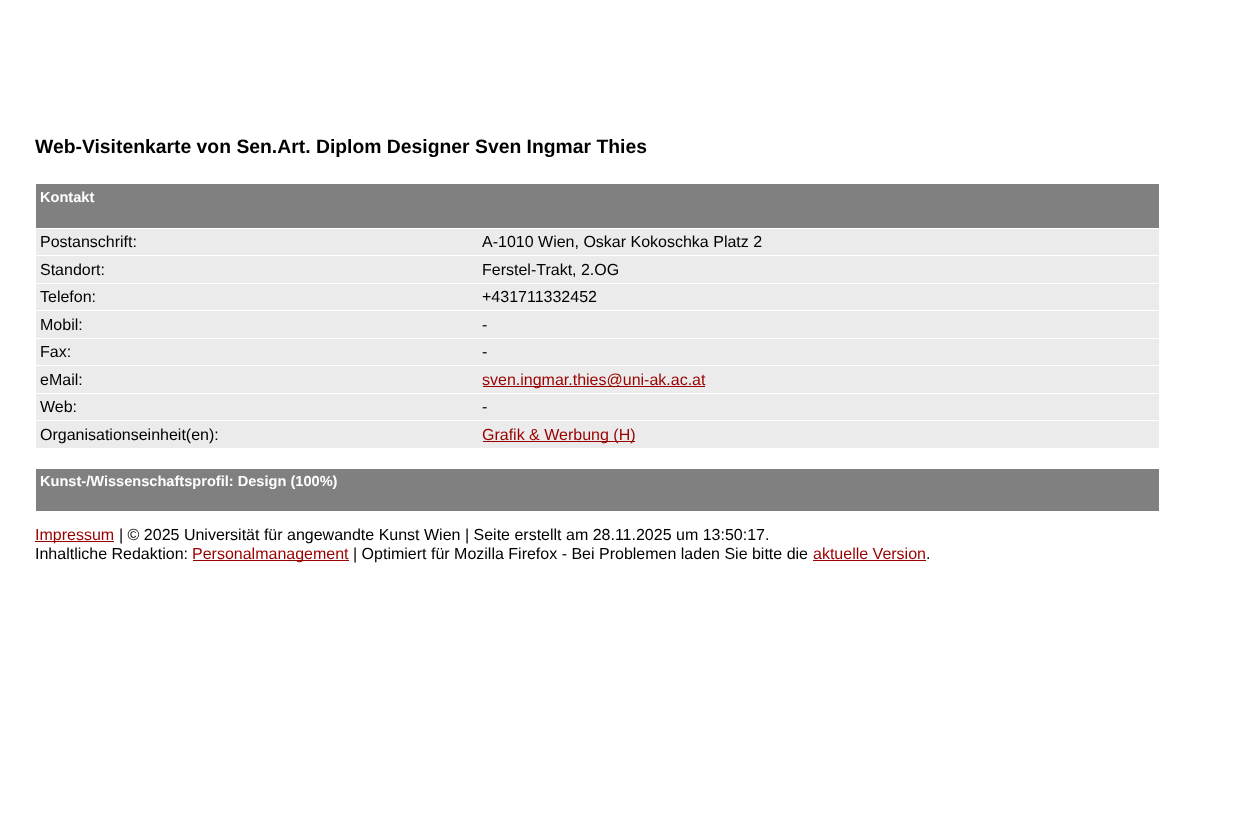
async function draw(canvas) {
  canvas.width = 1258;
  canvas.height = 834;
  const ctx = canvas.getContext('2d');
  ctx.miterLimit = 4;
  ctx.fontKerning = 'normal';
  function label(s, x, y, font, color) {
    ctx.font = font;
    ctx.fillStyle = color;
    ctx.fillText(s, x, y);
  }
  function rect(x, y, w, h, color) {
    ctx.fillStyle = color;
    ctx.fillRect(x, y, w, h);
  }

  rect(0, 0, 1258, 834, '#fff');
  label('Web-Visitenkarte von Sen.Art. Diplom Designer Sven Ingmar Thies', 35, 153, 'bold 19.35px Liberation Sans', '#000');
  rect(36, 184, 1123, 44, '#808080');
  label('Kontakt', 40, 202, 'bold 14.6px Liberation Sans', '#fff');
  rect(36, 229, 1123, 26, '#ebebeb');
  label('Postanschrift:', 40, 247, '16px Liberation Sans', '#000');
  label('A-1010 Wien, Oskar Kokoschka Platz 2', 482, 247, '16px Liberation Sans', '#000');
  rect(36, 256, 1123, 27, '#ebebeb');
  label('Standort:', 40, 275, '16px Liberation Sans', '#000');
  label('Ferstel-Trakt, 2.OG', 482, 275, '16px Liberation Sans', '#000');
  rect(36, 284, 1123, 26, '#ebebeb');
  label('Telefon:', 40, 302, '16px Liberation Sans', '#000');
  label('+431711332452', 482, 302, '16px Liberation Sans', '#000');
  rect(36, 311, 1123, 27, '#ebebeb');
  label('Mobil:', 40, 330, '16px Liberation Sans', '#000');
  label('-', 482, 330, '16px Liberation Sans', '#000');
  rect(36, 339, 1123, 26, '#ebebeb');
  label('Fax:', 40, 357, '16px Liberation Sans', '#000');
  label('-', 482, 357, '16px Liberation Sans', '#000');
  rect(36, 366, 1123, 27, '#ebebeb');
  label('eMail:', 40, 385, '16px Liberation Sans', '#000');
  rect(483, 386, 222, 1, '#900');
  label('sven.ingmar.thies@uni-ak.ac.at', 482, 385, '16px Liberation Sans', '#900');
  rect(36, 394, 1123, 26, '#ebebeb');
  label('Web:', 40, 412, '16px Liberation Sans', '#000');
  label('-', 482, 412, '16px Liberation Sans', '#000');
  rect(36, 421, 1123, 27, '#ebebeb');
  label('Organisationseinheit(en):', 40, 440, '16px Liberation Sans', '#000');
  rect(483, 441, 152, 1, '#900');
  label('Grafik & Werbung (H)', 482, 440, '16px Liberation Sans', '#900');
  rect(36, 469, 1123, 42, '#808080');
  label('Kunst-/Wissenschaftsprofil: Design (100%)', 40, 486, 'bold 14.6px Liberation Sans', '#fff');
  rect(35, 541, 79, 1, '#900');
  label('Impressum', 35, 540, '16px Liberation Sans', '#900');
  label('| © 2025 Universität für angewandte Kunst Wien | Seite erstellt am 28.11.2025 um 13:50:17.', 119, 540, '16px Liberation Sans', '#000');
  label('Inhaltliche Redaktion:', 35, 559, '16px Liberation Sans', '#000');
  rect(193, 560, 156, 1, '#900');
  label('Personalmanagement', 192, 559, '16px Liberation Sans', '#900');
  label('| Optimiert für Mozilla Firefox - Bei Problemen laden Sie bitte die', 353, 559, '16px Liberation Sans', '#000');
  label('aktuelle Version', 813, 559, '16px Liberation Sans', '#900');
  rect(813, 560, 113, 1, '#900');
  label('.', 926, 559, '16px Liberation Sans', '#000');
}

draw(document.querySelector('canvas'));
